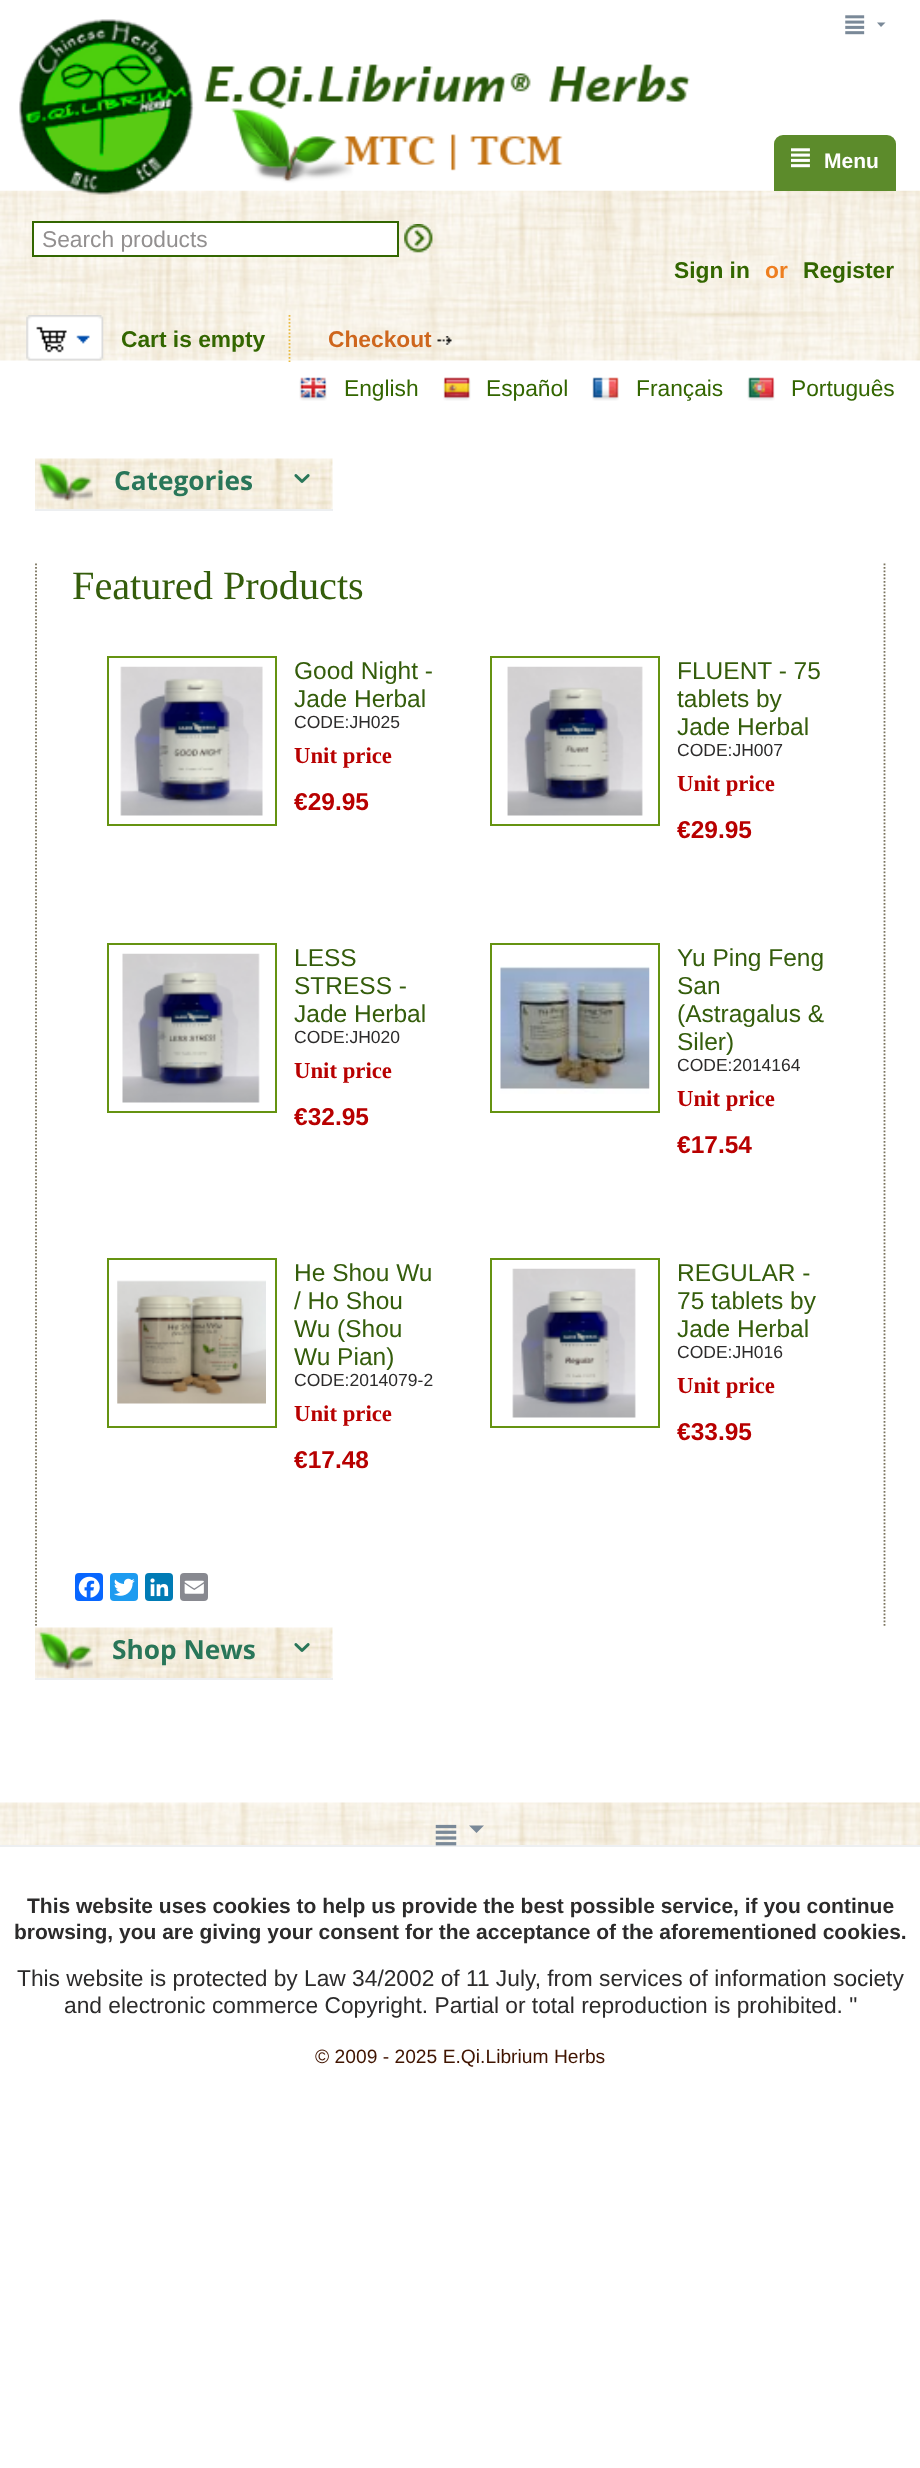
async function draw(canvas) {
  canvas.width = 920;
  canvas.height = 2468;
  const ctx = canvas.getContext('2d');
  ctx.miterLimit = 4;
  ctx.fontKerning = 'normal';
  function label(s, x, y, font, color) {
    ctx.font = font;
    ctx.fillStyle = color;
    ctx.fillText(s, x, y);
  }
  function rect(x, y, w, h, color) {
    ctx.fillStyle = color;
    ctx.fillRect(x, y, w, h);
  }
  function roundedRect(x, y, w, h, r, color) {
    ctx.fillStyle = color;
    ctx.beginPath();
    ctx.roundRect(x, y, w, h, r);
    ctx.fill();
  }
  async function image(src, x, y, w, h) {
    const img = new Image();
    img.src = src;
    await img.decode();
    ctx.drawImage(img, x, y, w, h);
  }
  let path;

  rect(0, 0, 920, 2468, '#fff');
  await image('assets/img1.png', 845, 15, 20, 20);
  ctx.fillStyle = '#7a8998';
  path = new Path2D('M881 27L877 22.5H885.5Z');
  ctx.fill(path);
  await image('assets/img4.png', 0, 190, 920, 171);
  await image('assets/img2.png', 19, 19, 671, 176);
  ctx.fillStyle = '#5c8b2b';
  ctx.beginPath();
  ctx.roundRect(774, 135, 122, 56, [9, 9, 0, 0]);
  ctx.fill();
  await image('assets/img3.png', 791, 148, 19, 20);
  label('Menu', 824, 168, 'bold 21px Liberation Sans', '#fff');
  ctx.beginPath();
  ctx.rect(33, 222, 365, 34);
  ctx.fill();
  ctx.strokeStyle = '#360';
  ctx.lineWidth = 2;
  ctx.stroke();
  label('Search products', 42, 247, '22.75px Liberation Sans', '#939090');
  await image('assets/img5.png', 404, 224, 29, 29);
  label('Sign in', 674, 278, 'bold 22.75px Liberation Sans', '#360');
  label('or', 765, 278, 'bold 22.75px Liberation Sans', '#ee7e1f');
  label('Register', 803, 278, 'bold 22.75px Liberation Sans', '#360');
  await image('assets/img6.png', 26, 315, 78, 46);
  path = new Path2D('M289.5 315V362');
  ctx.strokeStyle = '#eaba3e';
  ctx.lineWidth = 1.8;
  ctx.setLineDash([1.75, 1.75]);
  ctx.stroke(path);
  label('Cart is empty', 121, 347, 'bold 22.75px Liberation Sans', '#360');
  label('Checkout', 328, 347, 'bold 22.75px Liberation Sans', '#ce661d');
  await image('assets/img7.png', 437, 336, 15, 9);
  await image('assets/img8.png', 299, 377, 28, 24);
  label('English', 344, 396, '22.75px Liberation Sans', '#360');
  await image('assets/img9.png', 443, 377, 28, 24);
  label('Español', 486, 396, '22.75px Liberation Sans', '#360');
  await image('assets/img10.png', 592, 377, 27, 24);
  label('Français', 636, 396, '22.75px Liberation Sans', '#360');
  await image('assets/img11.png', 747, 377, 28, 24);
  label('Português', 791, 396, '22.75px Liberation Sans', '#360');
  await image('assets/img12.png', 35, 458, 298, 51);
  rect(35, 509, 298, 2, '#edeff1');
  label('Categories', 114, 490, 'bold 26.25px Open Sans', '#297659');
  await image('assets/img13.png', 294, 474, 16, 9);
  path = new Path2D('M884.5 563.5V1627.5');
  ctx.strokeStyle = '#7a735e';
  ctx.stroke(path);
  path = new Path2D('M36 563.5V1627.5');
  ctx.stroke(path);
  label('Featured Products', 72, 599, '40.25px Liberation Serif', '#345d0b');
  ctx.strokeStyle = '#659311';
  ctx.lineWidth = 2;
  ctx.setLineDash([]);
  ctx.strokeRect(108, 657, 168, 168);
  await image('assets/img14.png', 120, 666, 143, 150);
  label('Good Night -', 294, 679, '24.5px Liberation Sans', '#345d0b');
  label('Jade Herbal', 294, 707, '24.5px Liberation Sans', '#345d0b');
  label('CODE:JH025', 294, 728, '17.5px Liberation Sans', '#2c2b2b');
  label('Unit price', 294, 763, 'bold 22.75px Liberation Serif', '#b80000');
  label('€29.95', 294, 810, 'bold 24.5px Liberation Sans', '#b80000');
  ctx.strokeRect(491, 657, 168, 168);
  await image('assets/img15.png', 507, 666, 136, 150);
  label('FLUENT - 75', 677, 679, '24.5px Liberation Sans', '#345d0b');
  label('tablets by', 677, 707, '24.5px Liberation Sans', '#345d0b');
  label('Jade Herbal', 677, 735, '24.5px Liberation Sans', '#345d0b');
  label('CODE:JH007', 677, 756, '17.5px Liberation Sans', '#2c2b2b');
  label('Unit price', 677, 791, 'bold 22.75px Liberation Serif', '#b80000');
  label('€29.95', 677, 838, 'bold 24.5px Liberation Sans', '#b80000');
  ctx.strokeRect(108, 944, 168, 168);
  await image('assets/img16.png', 122, 953, 138, 150);
  label('LESS', 294, 966, '24.5px Liberation Sans', '#345d0b');
  label('STRESS -', 294, 994, '24.5px Liberation Sans', '#345d0b');
  label('Jade Herbal', 294, 1022, '24.5px Liberation Sans', '#345d0b');
  label('CODE:JH020', 294, 1043, '17.5px Liberation Sans', '#2c2b2b');
  label('Unit price', 294, 1078, 'bold 22.75px Liberation Serif', '#b80000');
  label('€32.95', 294, 1125, 'bold 24.5px Liberation Sans', '#b80000');
  ctx.strokeRect(491, 944, 168, 168);
  await image('assets/img17.png', 500, 966, 150, 128);
  label('Yu Ping Feng', 677, 966, '24.5px Liberation Sans', '#345d0b');
  label('San', 677, 994, '24.5px Liberation Sans', '#345d0b');
  label('(Astragalus &', 677, 1022, '24.5px Liberation Sans', '#345d0b');
  label('Siler)', 677, 1050, '24.5px Liberation Sans', '#345d0b');
  label('CODE:2014164', 677, 1071, '17.5px Liberation Sans', '#2c2b2b');
  label('Unit price', 677, 1106, 'bold 22.75px Liberation Serif', '#b80000');
  label('€17.54', 677, 1153, 'bold 24.5px Liberation Sans', '#b80000');
  ctx.strokeRect(108, 1259, 168, 168);
  await image('assets/img18.png', 117, 1280, 149, 124);
  label('He Shou Wu', 294, 1281, '24.5px Liberation Sans', '#345d0b');
  label('/ Ho Shou', 294, 1309, '24.5px Liberation Sans', '#345d0b');
  label('Wu (Shou', 294, 1337, '24.5px Liberation Sans', '#345d0b');
  label('Wu Pian)', 294, 1365, '24.5px Liberation Sans', '#345d0b');
  label('CODE:2014079-2', 294, 1386, '17.5px Liberation Sans', '#2c2b2b');
  label('Unit price', 294, 1421, 'bold 22.75px Liberation Serif', '#b80000');
  label('€17.48', 294, 1468, 'bold 24.5px Liberation Sans', '#b80000');
  ctx.strokeRect(491, 1259, 168, 168);
  await image('assets/img19.png', 512, 1268, 124, 150);
  label('REGULAR -', 677, 1281, '24.5px Liberation Sans', '#345d0b');
  label('75 tablets by', 677, 1309, '24.5px Liberation Sans', '#345d0b');
  label('Jade Herbal', 677, 1337, '24.5px Liberation Sans', '#345d0b');
  label('CODE:JH016', 677, 1358, '17.5px Liberation Sans', '#2c2b2b');
  label('Unit price', 677, 1393, 'bold 22.75px Liberation Serif', '#b80000');
  label('€33.95', 677, 1440, 'bold 24.5px Liberation Sans', '#b80000');
  roundedRect(75, 1573, 28, 28, 4, '#0866ff');
  await image('assets/img20.png', 78, 1576, 22, 22);
  roundedRect(110, 1573, 28, 28, 4, '#1d9bf0');
  await image('assets/img21.png', 114, 1578, 21, 18);
  roundedRect(145, 1573, 28, 28, 4, '#007bb5');
  await image('assets/img22.png', 150, 1578, 19, 19);
  roundedRect(180, 1573, 28, 28, 4, '#888990');
  await image('assets/img23.png', 184, 1580, 20, 14);
  await image('assets/img24.png', 35, 1627, 298, 51);
  rect(35, 1678, 298, 2, '#edeff1');
  label('Shop News', 112, 1659, 'bold 26.25px Open Sans', '#297659');
  await image('assets/img25.png', 294, 1643, 16, 9);
  await image('assets/img26.png', 0, 1802, 920, 43);
  rect(0, 1845, 920, 2, '#edeff1');
  await image('assets/img27.png', 435, 1824, 22, 22);
  ctx.fillStyle = '#7a8998';
  path = new Path2D('M476.5 1833L469 1825.5H484Z');
  ctx.fill(path);
  label('This website uses cookies to help us provide the best possible service, if you continue', 27, 1913, 'bold 21px Liberation Sans', '#2c2b2b');
  label('browsing, you are giving your consent for the acceptance of the aforementioned cookies.', 14, 1939, 'bold 21px Liberation Sans', '#2c2b2b');
  label('This website is protected by Law 34/2002 of 11 July, from services of information society', 17, 1986, '22.75px Liberation Sans', '#2c2b2b');
  label('and electronic commerce Copyright. Partial or total reproduction is prohibited. "', 64, 2013, '22.75px Liberation Sans', '#2c2b2b');
  label('© 2009 - 2025 E.Qi.Librium Herbs', 315, 2063, '19.25px Liberation Sans', '#401400');
}

draw(document.querySelector('canvas'));
